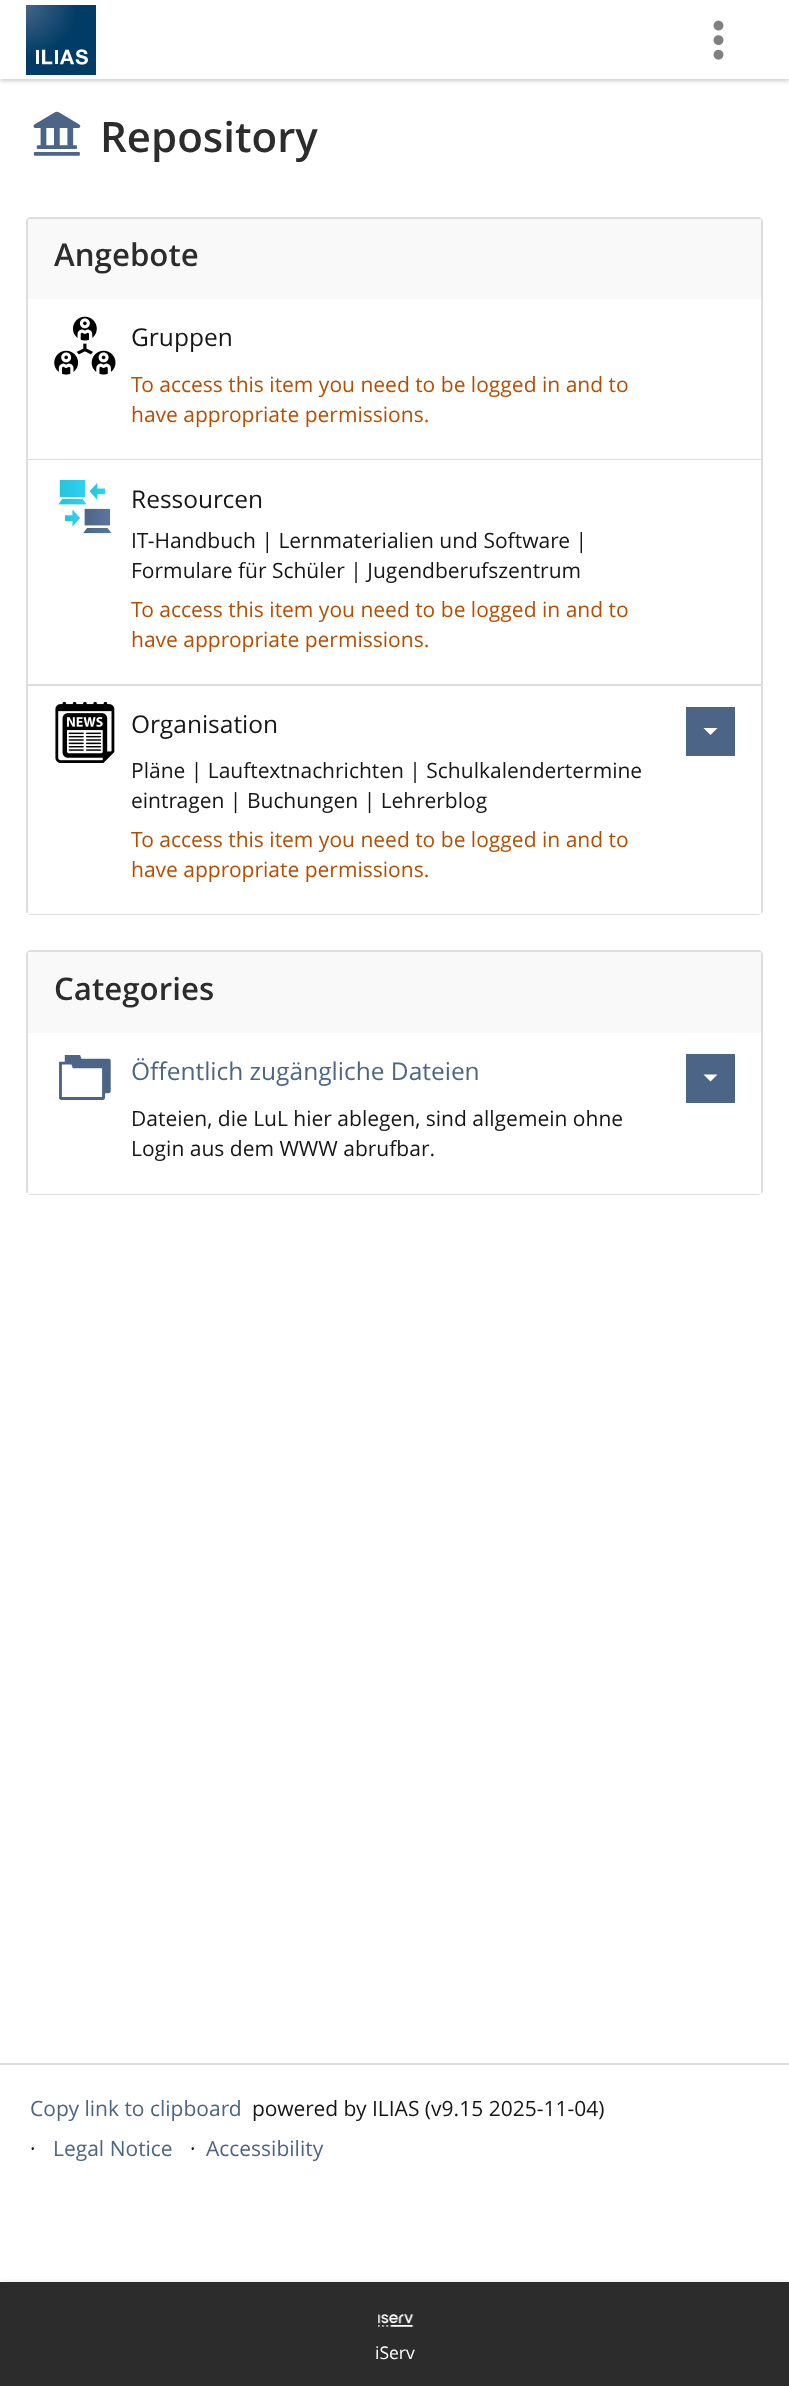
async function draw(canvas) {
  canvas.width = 789;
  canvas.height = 2386;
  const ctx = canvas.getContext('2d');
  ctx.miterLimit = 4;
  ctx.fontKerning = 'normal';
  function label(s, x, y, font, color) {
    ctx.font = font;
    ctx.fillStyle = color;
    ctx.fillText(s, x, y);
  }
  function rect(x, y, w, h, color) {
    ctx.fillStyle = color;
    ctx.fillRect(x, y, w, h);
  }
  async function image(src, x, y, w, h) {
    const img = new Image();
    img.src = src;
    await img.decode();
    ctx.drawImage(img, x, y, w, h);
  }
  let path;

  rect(0, 0, 789, 2386, '#fff');
  ctx.fillStyle = '#0000001a';
  ctx.filter = 'blur(2px)';
  ctx.beginPath();
  ctx.rect(0, 2, 789, 79);
  ctx.fill();
  ctx.filter = 'none';
  ctx.filter = 'blur(2px)';
  ctx.beginPath();
  ctx.rect(0, 2, 789, 79);
  ctx.fill();
  ctx.filter = 'none';
  rect(0, 0, 789, 79, '#fff');
  await image('assets/img1.png', 26, 5, 70, 70);
  await image('assets/img2.png', 713, 20, 11, 40);
  await image('assets/img3.png', 33, 111, 48, 45);
  label('Repository', 100, 152, '600 42px Open Sans', '#2c2c2c');
  ctx.beginPath();
  ctx.roundRect(27, 218, 735, 696, 4);
  ctx.strokeStyle = '#ddd';
  ctx.lineWidth = 2;
  ctx.stroke();
  rect(28, 219, 733, 80, '#f9f9f9');
  label('Angebote', 54, 266, '600 31.25px Open Sans', '#2c2c2c');
  rect(28, 459, 733, 1, '#ddd');
  await image('assets/img4.png', 54, 316, 62, 59);
  label('Gruppen', 131, 346, '24.5px Open Sans', '#161616');
  label('To access this item you need to be logged in and to', 131, 392, '21px Open Sans', '#b54f00');
  label('have appropriate permissions.', 131, 422, '21px Open Sans', '#b54f00');
  rect(28, 684, 733, 2, '#ddd');
  await image('assets/img5.png', 58, 480, 54, 54);
  label('Ressourcen', 131, 508, '24.5px Open Sans', '#161616');
  label('IT-Handbuch | Lernmaterialien und Software |', 131, 548, '21px Open Sans', '#161616');
  label('Formulare für Schüler | Jugendberufszentrum', 131, 578, '21px Open Sans', '#161616');
  label('To access this item you need to be logged in and to', 131, 617, '21px Open Sans', '#b54f00');
  label('have appropriate permissions.', 131, 647, '21px Open Sans', '#b54f00');
  rect(28, 910, 733, 4, '#fff');
  await image('assets/img6.png', 55, 702, 60, 61);
  label('Organisation', 131, 733, '24.5px Open Sans', '#161616');
  rect(686, 707, 49, 49, '#4c6586');
  ctx.fillStyle = '#fff';
  path = new Path2D('M703.5 728H717.5L710.5 735Z');
  ctx.fill(path);
  label('Pläne | Lauftextnachrichten | Schulkalendertermine', 131, 778, '21px Open Sans', '#161616');
  label('eintragen | Buchungen | Lehrerblog', 131, 808, '21px Open Sans', '#161616');
  label('To access this item you need to be logged in and to', 131, 847, '21px Open Sans', '#b54f00');
  label('have appropriate permissions.', 131, 877, '21px Open Sans', '#b54f00');
  ctx.beginPath();
  ctx.roundRect(27, 951, 735, 243, 4);
  ctx.stroke();
  rect(28, 952, 733, 81, '#f9f9f9');
  label('Categories', 54, 1000, '600 31.25px Open Sans', '#2c2c2c');
  rect(28, 1190, 733, 4, '#fff');
  await image('assets/img7.png', 59, 1055, 52, 45);
  label('Öffentlich zugängliche Dateien', 131, 1080, '24.5px Open Sans', '#4c6586');
  rect(686, 1054, 49, 49, '#4c6586');
  ctx.fillStyle = '#fff';
  path = new Path2D('M703.5 1074.5H717.5L710.5 1081.5Z');
  ctx.fill(path);
  label('Dateien, die LuL hier ablegen, sind allgemein ohne', 131, 1126, '21px Open Sans', '#161616');
  label('Login aus dem WWW abrufbar.', 131, 1156, '21px Open Sans', '#161616');
  rect(0, 2063, 789, 2, '#ddd');
  label('Copy link to clipboard', 30, 2116, '21px Open Sans', '#4c6586');
  label('powered by ILIAS (v9.15 2025-11-04)', 252, 2116, '21px Open Sans', '#161616');
  label('·', 30, 2156, '21px Open Sans', '#161616');
  label('Legal Notice', 53, 2156, '21px Open Sans', '#4c6586');
  label('·', 190, 2156, '21px Open Sans', '#161616');
  label('Accessibility', 206, 2156, '21px Open Sans', '#4c6586');
  rect(0, 2282, 789, 104, '#2c2c2c');
  ctx.save();
  ctx.beginPath();
  ctx.rect(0, 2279, 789, 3);
  ctx.clip();
  ctx.fillStyle = '#0000001a';
  ctx.filter = 'blur(3.5px)';
  ctx.beginPath();
  ctx.rect(0, 2282, 789, 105);
  ctx.fill();
  ctx.filter = 'none';
  ctx.restore();
  await image('assets/img8.png', 378, 2314, 36, 13);
  label('iServ', 375, 2359, '17.5px Open Sans', '#fff');
}

draw(document.querySelector('canvas'));
